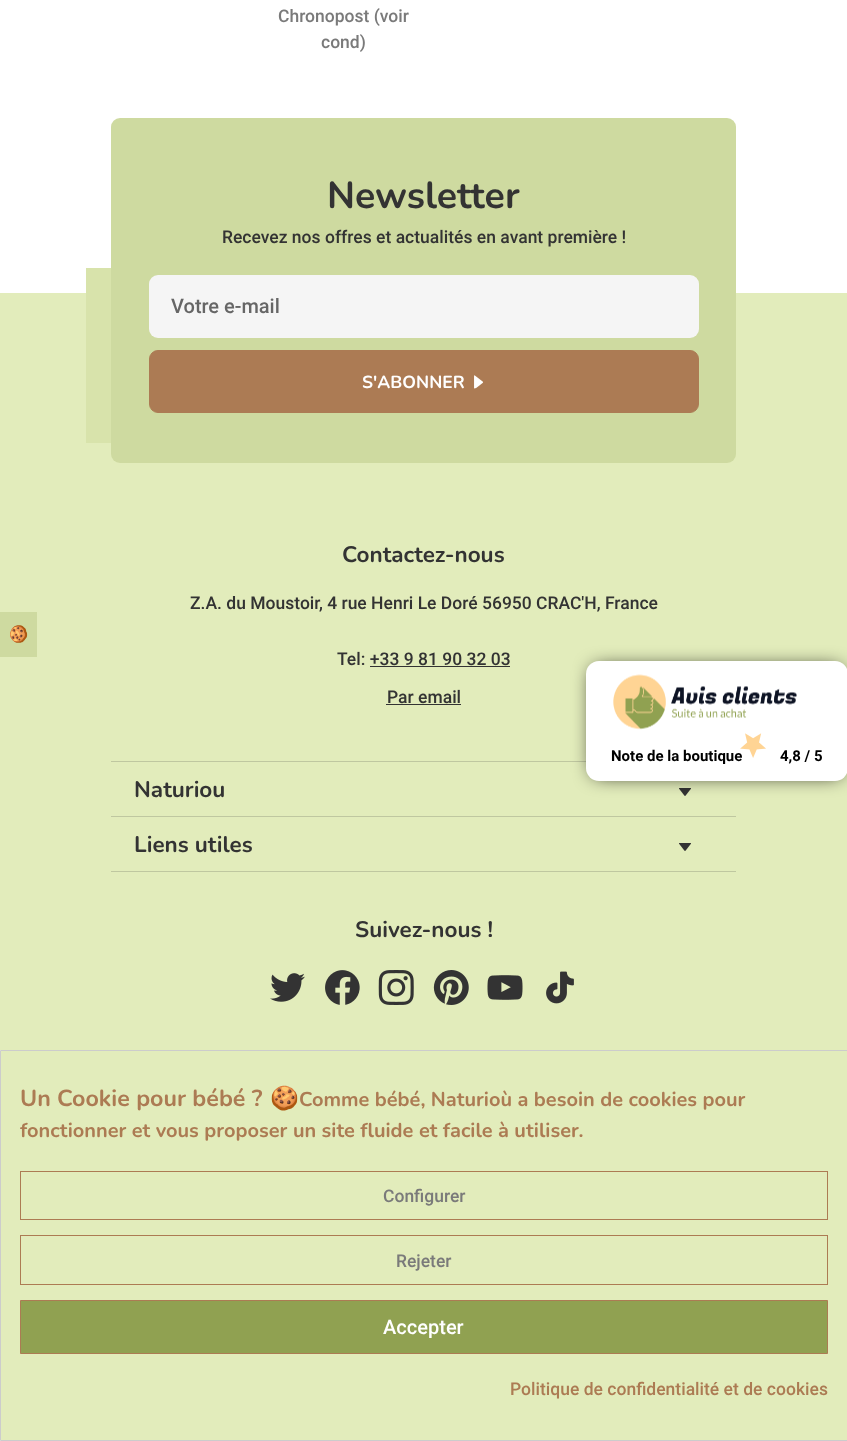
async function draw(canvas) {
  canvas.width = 847;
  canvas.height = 1441;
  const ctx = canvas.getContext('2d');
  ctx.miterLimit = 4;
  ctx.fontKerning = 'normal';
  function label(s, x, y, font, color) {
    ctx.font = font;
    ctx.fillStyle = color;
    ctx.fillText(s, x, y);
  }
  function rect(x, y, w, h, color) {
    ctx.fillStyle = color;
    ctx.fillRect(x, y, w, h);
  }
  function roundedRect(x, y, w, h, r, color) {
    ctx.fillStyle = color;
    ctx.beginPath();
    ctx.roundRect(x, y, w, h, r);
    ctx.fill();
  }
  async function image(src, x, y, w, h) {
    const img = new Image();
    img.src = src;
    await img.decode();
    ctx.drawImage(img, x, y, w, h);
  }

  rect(0, 0, 847, 1441, '#fff');
  rect(0, 293, 847, 757, '#e2ecbb');
  rect(0, 612, 37, 45, '#cedaa0');
  ctx.font = '16px Noto Color Emoji';
  ctx.fillStyle = '#ac7b53';
  ctx.save();
  ctx.translate(24, 644);
  ctx.rotate(-90 * Math.PI / 180);
  ctx.fillText('🍪', 0, 0);
  ctx.restore();
  label('Chronopost (voir', 278, 22, '500 17.5px Roboto', '#7a7a7a');
  label('cond)', 321, 48, '500 17.5px Roboto', '#7a7a7a');
  rect(86, 268, 25, 175, '#d8e3ab');
  roundedRect(111, 118, 625, 345, 9, '#cedaa0');
  label('Newsletter', 327, 208, 'bold 37.5px Nunito', '#333');
  label('Recevez nos offres et actualités en avant première !', 222, 243, '500 17.5px Roboto', '#333');
  roundedRect(149, 275, 550, 63, 9, '#f5f5f5');
  label('Votre e-mail', 171, 313, '500 20px Roboto', '#666');
  ctx.fillStyle = '#ac7b54';
  ctx.beginPath();
  ctx.roundRect(149.5, 350.5, 549, 62, 8.5);
  ctx.fill();
  ctx.strokeStyle = '#ac7b54';
  ctx.stroke();
  label('S\'ABONNER', 362, 388, 'bold 17.5px Nunito', '#fff');
  await image('assets/img1.png', 474, 375, 9, 14);
  label('Contactez-nous', 342, 562, 'bold 22.5px Nunito', '#333');
  label('Z.A. du Moustoir, 4 rue Henri Le Doré 56950 CRAC\'H, France', 190, 609, '500 17.5px Roboto', '#333');
  label('Tel: +33 9 81 90 32 03', 337, 665, '500 17.5px Roboto', '#333');
  rect(370, 666, 140, 1, '#333');
  label('Par email', 387, 703, '500 17.5px Roboto', '#333');
  rect(386, 704, 75, 1, '#333');
  rect(111, 761, 475, 1, '#bfc7a0');
  label('Naturiou', 134, 797, 'bold 22.5px Nunito', '#333');
  await image('assets/img2.png', 679, 788, 12, 8);
  rect(111, 816, 625, 1, '#bfc7a0');
  label('Liens utiles', 134, 852, 'bold 22.5px Nunito', '#333');
  await image('assets/img2.png', 679, 843, 12, 8);
  rect(111, 871, 625, 1, '#bfc7a0');
  label('Suivez-nous !', 355, 937, 'bold 22.5px Nunito', '#333');
  await image('assets/img3.png', 270, 973, 35, 29);
  await image('assets/img4.png', 325, 970, 35, 35);
  await image('assets/img5.png', 378, 970, 36, 35);
  await image('assets/img6.png', 433, 970, 36, 35);
  await image('assets/img7.png', 487, 975, 36, 25);
  await image('assets/img8.png', 546, 971, 28, 33);
  ctx.fillStyle = '#000';
  ctx.filter = 'blur(9.5px)';
  ctx.beginPath();
  ctx.roundRect(593, 668, 248, 107, 6);
  ctx.fill();
  ctx.filter = 'none';
  roundedRect(586, 661, 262, 120, 13, '#fff');
  await image('assets/img9.png', 613, 674, 184, 56);
  label('Note de la boutique', 611, 761, 'bold 15px Roboto', '#000');
  await image('assets/img10.png', 740, 733, 26, 25);
  label('4,8 / 5', 780, 761, 'bold 15px Roboto', '#000');
  ctx.fillStyle = '#e2ecbb';
  ctx.beginPath();
  ctx.rect(0.5, 1050.5, 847, 390);
  ctx.fill();
  ctx.strokeStyle = '#ccc';
  ctx.stroke();
  label('Un Cookie pour bébé ?', 20, 1106, 'bold 23.25px Nunito', '#ac7b53');
  label('🍪', 270, 1106, 'bold 23.25px Noto Color Emoji', '#ac7b53');
  label('Comme bébé, Naturioù a besoin de cookies pour', 299, 1106, 'bold 20px Nunito', '#ac7b53');
  label('fonctionner et vous proposer un site fluide et facile à utiliser.', 20, 1137, 'bold 20px Nunito', '#ac7b53');
  ctx.strokeStyle = '#ac7b53';
  ctx.strokeRect(20.5, 1171.5, 807, 48);
  label('Configurer', 383, 1202, '500 17.5px Roboto', '#7a7a7a');
  ctx.strokeRect(20.5, 1235.5, 807, 49);
  label('Rejeter', 396, 1267, '500 17.5px Roboto', '#7a7a7a');
  ctx.fillStyle = '#90a151';
  ctx.beginPath();
  ctx.rect(20.5, 1300.5, 807, 53);
  ctx.fill();
  ctx.stroke();
  label('Accepter', 383, 1334, '500 20px Roboto', '#fff');
  label('Politique de confidentialité et de cookies', 510, 1395, '500 17.5px Roboto', '#ac7b53');
}

draw(document.querySelector('canvas'));
